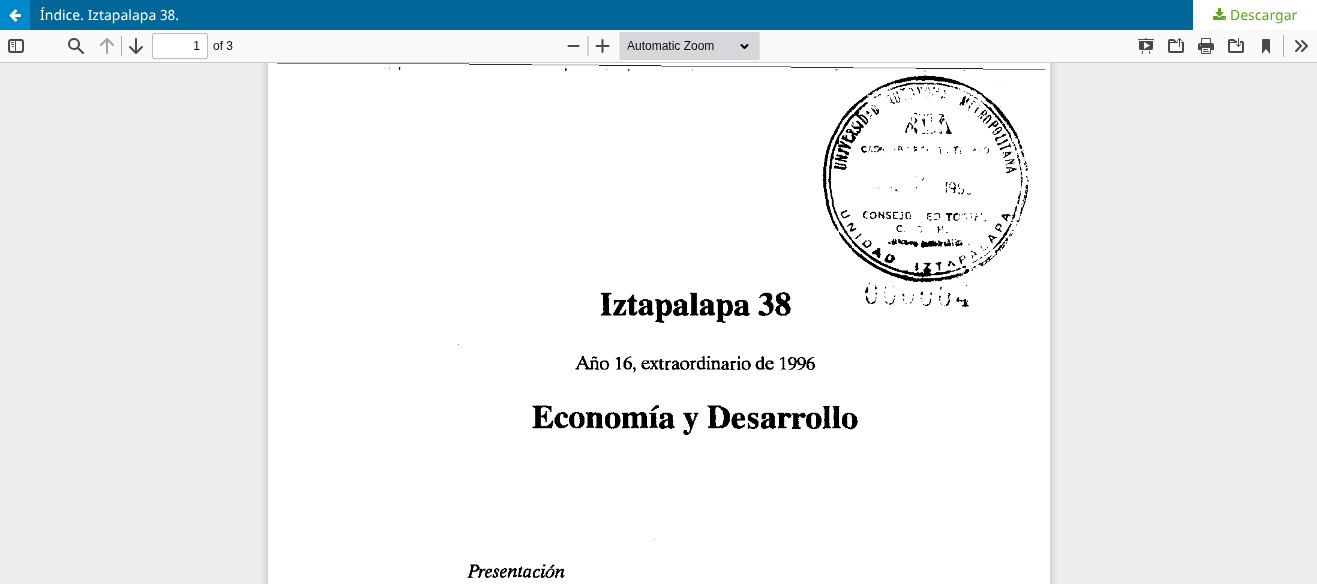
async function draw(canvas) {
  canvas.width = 1317;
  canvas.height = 584;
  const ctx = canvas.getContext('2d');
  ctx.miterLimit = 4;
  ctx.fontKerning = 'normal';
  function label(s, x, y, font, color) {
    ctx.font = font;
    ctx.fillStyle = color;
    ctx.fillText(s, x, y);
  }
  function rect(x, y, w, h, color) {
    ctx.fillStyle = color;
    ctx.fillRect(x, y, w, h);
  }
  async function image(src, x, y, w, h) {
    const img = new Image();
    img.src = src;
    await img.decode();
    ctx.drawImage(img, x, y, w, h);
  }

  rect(0, 0, 1317, 584, '#fff');
  rect(30, 0, 1163, 30, '#006798');
  rect(0, 0, 30, 30, '#008acb');
  await image('assets/img1.png', 9, 9, 12, 13);
  label('Índice. Iztapalapa 38.', 40, 20, '14px Noto Sans', '#fff');
  await image('assets/img2.png', 1213, 8, 13, 12);
  label('Descargar', 1230, 20, '14px Noto Sans', '#5aa71b');
  await image('assets/img3.png', 0, 30, 1317, 554);
}

draw(document.querySelector('canvas'));
